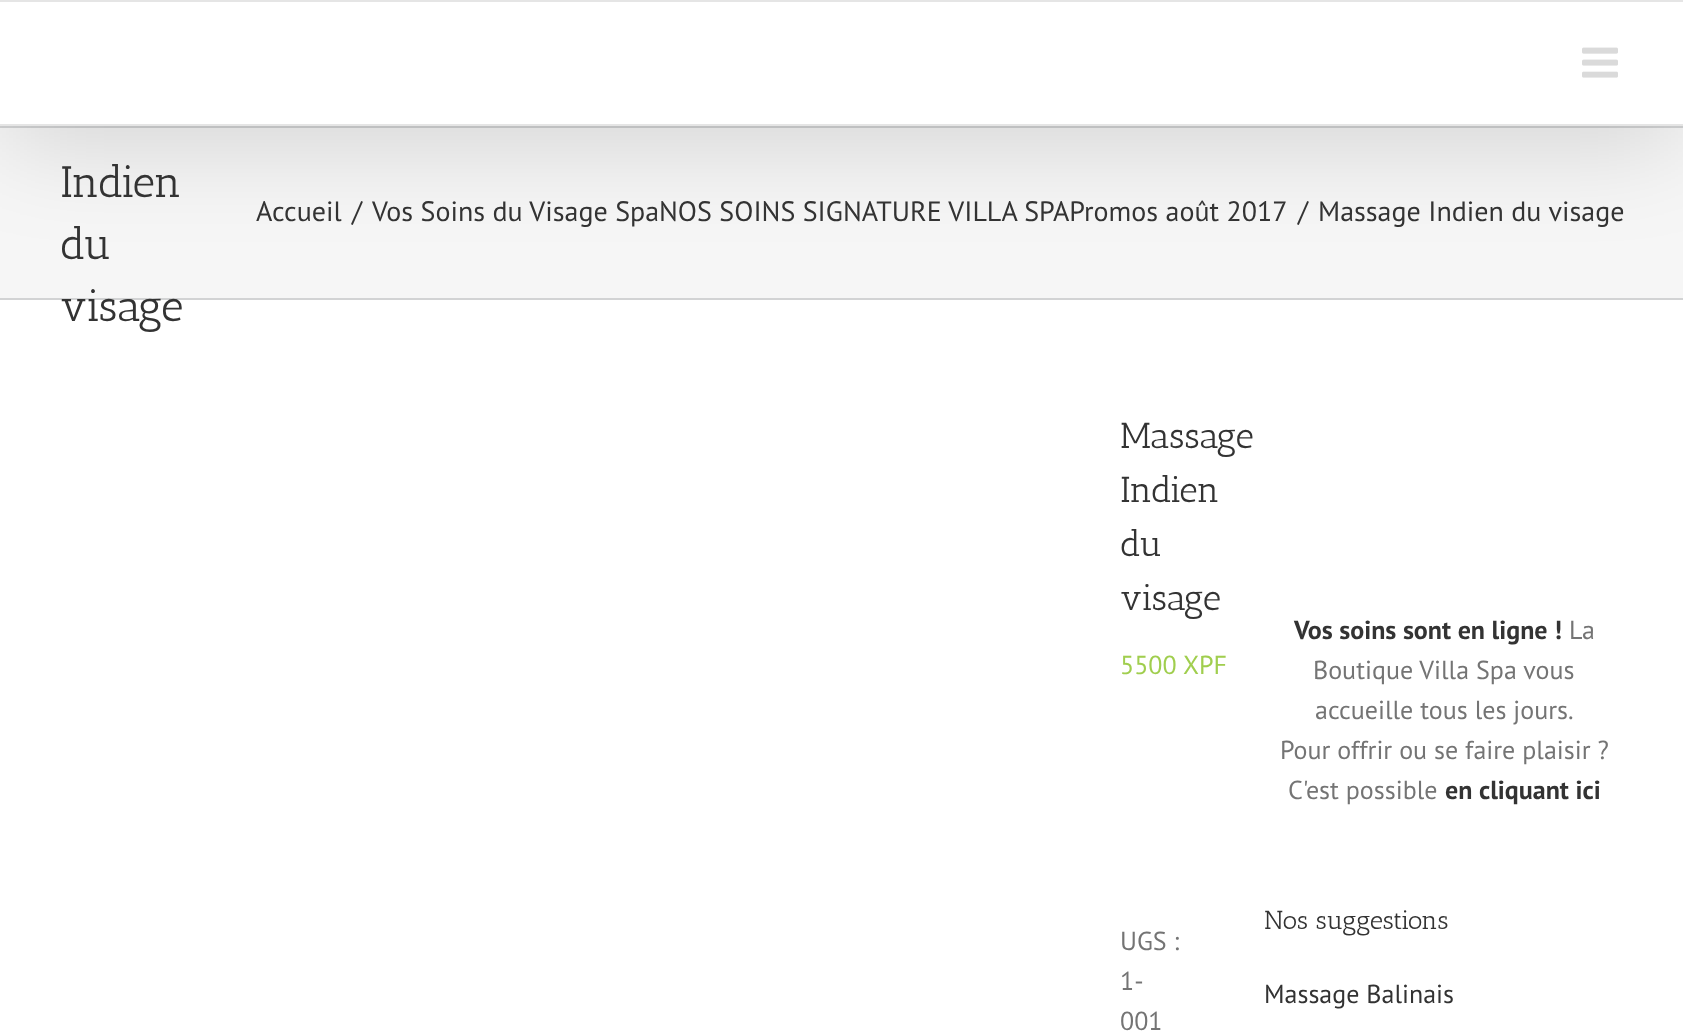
async function draw(canvas) {
  canvas.width = 1683;
  canvas.height = 1035;
  const ctx = canvas.getContext('2d');
  ctx.miterLimit = 4;
  ctx.fontKerning = 'normal';
  function label(s, x, y, font, color) {
    ctx.font = font;
    ctx.fillStyle = color;
    ctx.fillText(s, x, y);
  }
  function rect(x, y, w, h, color) {
    ctx.fillStyle = color;
    ctx.fillRect(x, y, w, h);
  }
  async function image(src, x, y, w, h) {
    const img = new Image();
    img.src = src;
    await img.decode();
    ctx.drawImage(img, x, y, w, h);
  }

  rect(0, 0, 1683, 1035, '#fff');
  rect(0, 128, 1683, 170, '#f6f6f6');
  rect(0, 126, 1683, 2, '#d2d3d4');
  ctx.fillStyle = '#00000024';
  ctx.filter = 'blur(50px)';
  ctx.beginPath();
  ctx.rect(4, 24, 1676, 118);
  ctx.fill();
  ctx.filter = 'none';
  rect(0, 0, 1683, 2, '#e5e5e5');
  rect(0, 2, 1683, 122, '#fff');
  rect(0, 124, 1683, 2, '#e5e5e5');
  await image('assets/img1.png', 1582, 47, 36, 31);
  rect(0, 298, 1683, 2, '#d2d3d4');
  label('Indien', 60, 197, '44px Antic Slab', '#333');
  label('du', 60, 259, '44px Antic Slab', '#333');
  label('visage', 60, 321, '44px Antic Slab', '#333');
  label('Accueil', 256, 221, '28px PT Sans', '#333');
  label('/', 352, 221, '28px PT Sans', '#333');
  label('Vos Soins du Visage SpaNOS SOINS SIGNATURE VILLA SPAPromos août 2017', 372, 221, '28px PT Sans', '#333');
  label('/', 1298, 221, '28px PT Sans', '#333');
  label('Massage Indien du visage', 1318, 221, '28px PT Sans', '#333');
  label('Massage', 1120, 448, '36px Antic Slab', '#333');
  label('Indien', 1120, 502, '36px Antic Slab', '#333');
  label('du', 1120, 556, '36px Antic Slab', '#333');
  label('visage', 1120, 610, '36px Antic Slab', '#333');
  label('5500', 1120, 674, '26px PT Sans', '#a0ce4e');
  label('XPF', 1183, 674, '26px PT Sans', '#a0ce4e');
  label('UGS :', 1120, 950, '26px PT Sans', '#747474');
  label('1-', 1120, 990, '26px PT Sans', '#747474');
  label('001', 1120, 1030, '26px PT Sans', '#747474');
  label('Vos soins sont en ligne !', 1294, 639, 'bold 26px PT Sans', '#333');
  label('La', 1569, 639, '26px PT Sans', '#747474');
  label('Boutique Villa Spa vous', 1313, 679, '26px PT Sans', '#747474');
  label('accueille tous les jours.', 1315, 719, '26px PT Sans', '#747474');
  label('Pour offrir ou se faire plaisir ?', 1280, 759, '26px PT Sans', '#747474');
  label('C\'est possible', 1288, 799, '26px PT Sans', '#747474');
  label('en cliquant ici', 1445, 799, 'bold 26px PT Sans', '#333');
  label('Nos suggestions', 1264, 929, '26px Antic Slab', '#333');
  label('Massage Balinais', 1264, 1003, '26px PT Sans', '#333');
}

draw(document.querySelector('canvas'));
